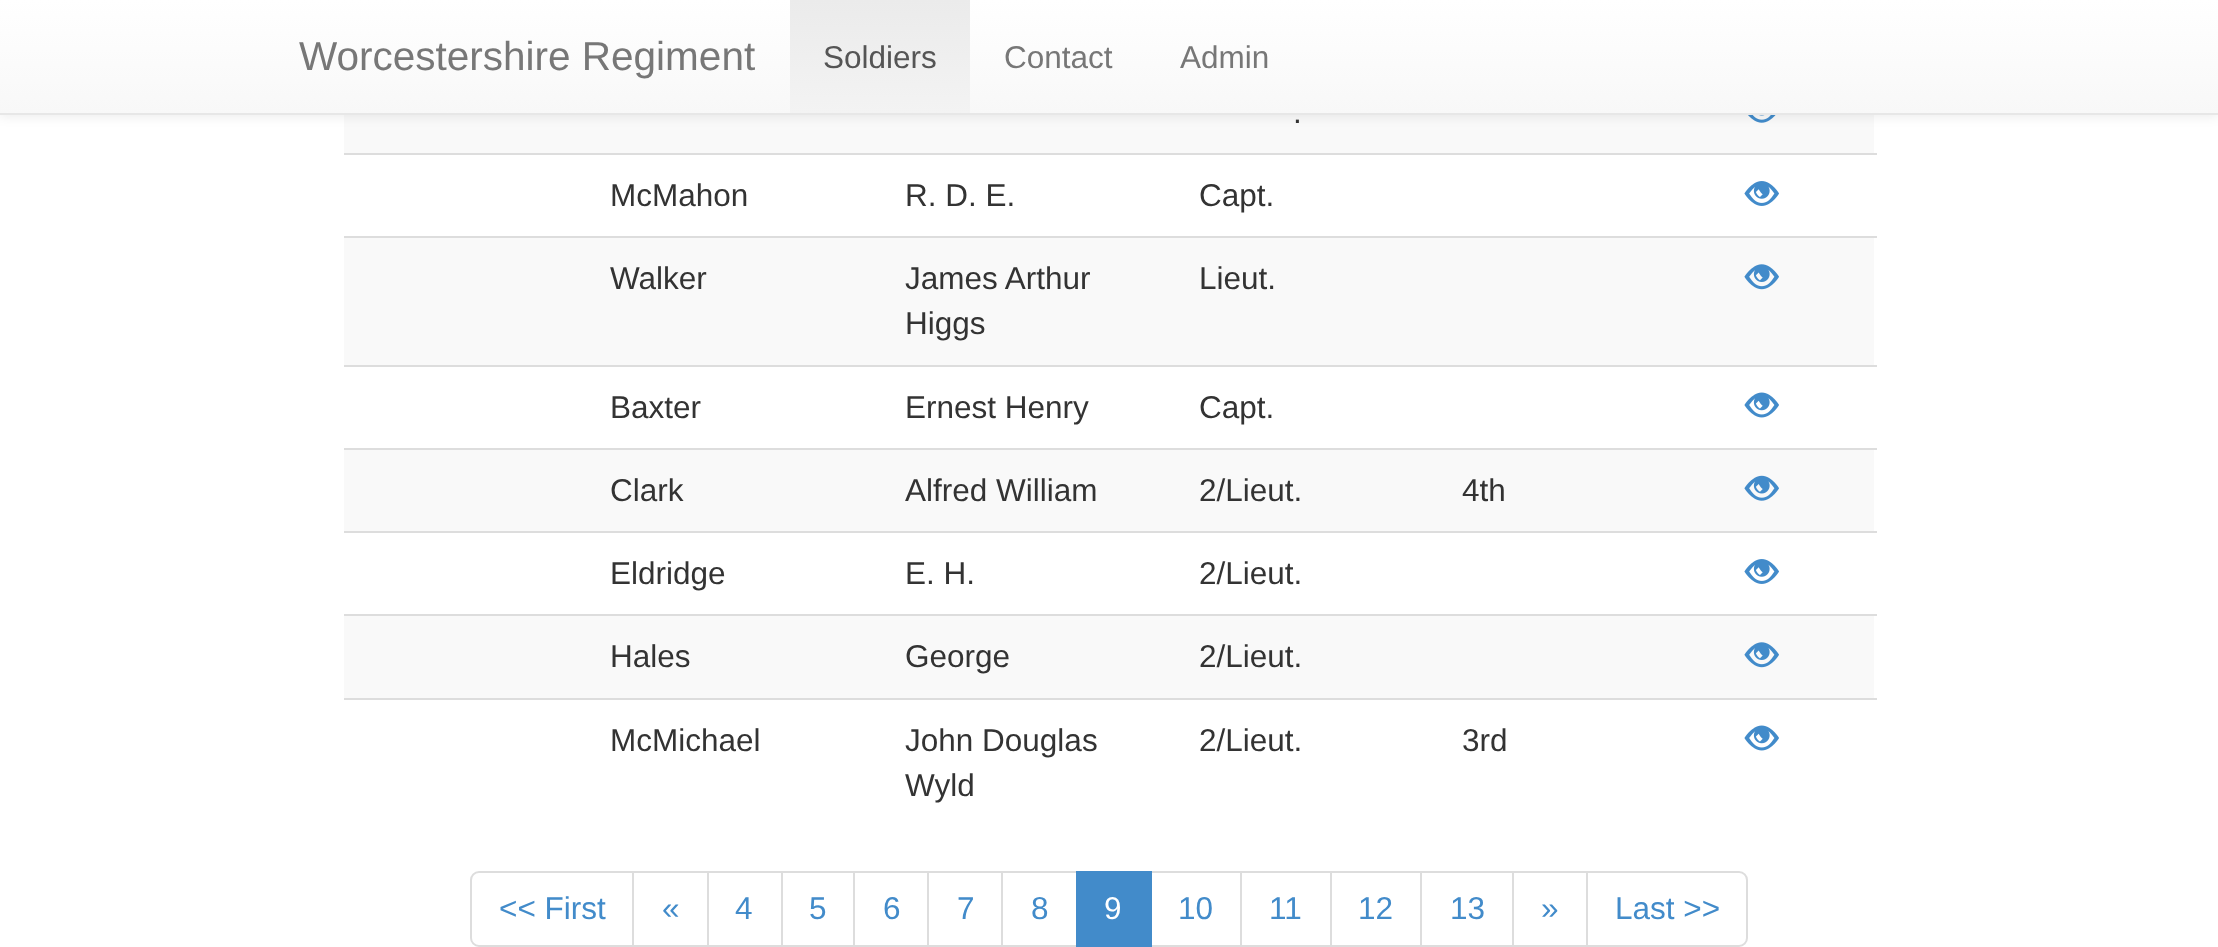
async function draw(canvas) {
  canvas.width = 2218;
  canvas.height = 947;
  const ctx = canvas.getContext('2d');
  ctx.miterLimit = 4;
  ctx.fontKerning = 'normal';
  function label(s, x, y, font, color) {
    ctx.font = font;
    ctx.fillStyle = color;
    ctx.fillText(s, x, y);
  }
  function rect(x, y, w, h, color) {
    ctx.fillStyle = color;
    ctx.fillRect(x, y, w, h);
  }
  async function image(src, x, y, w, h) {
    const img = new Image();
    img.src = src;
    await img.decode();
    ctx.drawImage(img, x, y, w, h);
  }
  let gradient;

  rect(0, 0, 2218, 947, '#fff');
  rect(344, 115, 1530, 38, '#f9f9f9');
  await image('assets/img1.png', 1748, 115, 28, 8);
  ctx.fillStyle = '#00000012';
  ctx.filter = 'blur(5.5px)';
  ctx.beginPath();
  ctx.rect(0, 2, 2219, 115);
  ctx.fill();
  ctx.filter = 'none';
  gradient = ctx.createLinearGradient(1109, 0, 1109, 113);
  gradient.addColorStop(0, '#fff');
  gradient.addColorStop(1, '#f8f8f8');
  ctx.fillStyle = gradient;
  ctx.fillRect(0, 0, 2218, 113);
  rect(0, 113, 2218, 2, '#e7e7e7');
  label('Worcestershire Regiment', 299, 70, '40.5px Liberation Sans', '#777');
  gradient = ctx.createLinearGradient(880, 0, 880, 113);
  gradient.addColorStop(0, '#ebebeb');
  gradient.addColorStop(1, '#f3f3f3');
  ctx.fillStyle = gradient;
  ctx.fillRect(790, 0, 180, 113);
  label('Soldiers', 823, 68, '31.5px Liberation Sans', '#555');
  label('Contact', 1004, 68, '31.5px Liberation Sans', '#777');
  label('Admin', 1180, 68, '31.5px Liberation Sans', '#777');
  label('.', 1293, 123, '31.5px Liberation Sans', '#333');
  rect(344, 153, 1533, 2, '#ddd');
  await image('assets/img2.png', 1744, 181, 35, 25);
  label('McMahon', 610, 206, '31.5px Liberation Sans', '#333');
  label('R. D. E.', 905, 206, '31.5px Liberation Sans', '#333');
  label('Capt.', 1199, 206, '31.5px Liberation Sans', '#333');
  rect(344, 236, 1533, 2, '#ddd');
  rect(344, 238, 1530, 127, '#f9f9f9');
  await image('assets/img3.png', 1744, 264, 35, 26);
  label('Walker', 610, 289, '31.5px Liberation Sans', '#333');
  label('James Arthur', 905, 289, '31.5px Liberation Sans', '#333');
  label('Higgs', 905, 334, '31.5px Liberation Sans', '#333');
  label('Lieut.', 1199, 289, '31.5px Liberation Sans', '#333');
  rect(344, 365, 1533, 2, '#ddd');
  await image('assets/img4.png', 1744, 392, 35, 26);
  label('Baxter', 610, 418, '31.5px Liberation Sans', '#333');
  label('Ernest Henry', 905, 418, '31.5px Liberation Sans', '#333');
  label('Capt.', 1199, 418, '31.5px Liberation Sans', '#333');
  rect(344, 448, 1533, 2, '#ddd');
  rect(344, 450, 1530, 81, '#f9f9f9');
  await image('assets/img5.png', 1744, 475, 35, 26);
  label('Clark', 610, 501, '31.5px Liberation Sans', '#333');
  label('Alfred William', 905, 501, '31.5px Liberation Sans', '#333');
  label('2/Lieut.', 1199, 501, '31.5px Liberation Sans', '#333');
  label('4th', 1462, 501, '31.5px Liberation Sans', '#333');
  rect(344, 531, 1533, 2, '#ddd');
  await image('assets/img2.png', 1744, 559, 35, 25);
  label('Eldridge', 610, 584, '31.5px Liberation Sans', '#333');
  label('E. H.', 905, 584, '31.5px Liberation Sans', '#333');
  label('2/Lieut.', 1199, 584, '31.5px Liberation Sans', '#333');
  rect(344, 614, 1533, 2, '#ddd');
  rect(344, 616, 1530, 82, '#f9f9f9');
  await image('assets/img3.png', 1744, 642, 35, 26);
  label('Hales', 610, 667, '31.5px Liberation Sans', '#333');
  label('George', 905, 667, '31.5px Liberation Sans', '#333');
  label('2/Lieut.', 1199, 667, '31.5px Liberation Sans', '#333');
  rect(344, 698, 1533, 2, '#ddd');
  await image('assets/img4.png', 1744, 725, 35, 26);
  label('McMichael', 610, 751, '31.5px Liberation Sans', '#333');
  label('John Douglas', 905, 751, '31.5px Liberation Sans', '#333');
  label('Wyld', 905, 796, '31.5px Liberation Sans', '#333');
  label('2/Lieut.', 1199, 751, '31.5px Liberation Sans', '#333');
  label('3rd', 1462, 751, '31.5px Liberation Sans', '#333');
  ctx.beginPath();
  ctx.roundRect(471, 872, 163, 74, [8, 0, 0, 8]);
  ctx.strokeStyle = '#ddd';
  ctx.lineWidth = 2;
  ctx.stroke();
  label('<< First', 499, 919, '31.5px Liberation Sans', '#428bca');
  rect(634, 873, 1, 72, '#fff');
  ctx.strokeRect(633, 872, 75, 74);
  label('«', 662, 919, '31.5px Liberation Sans', '#428bca');
  ctx.strokeRect(708, 872, 74, 74);
  label('4', 735, 919, '31.5px Liberation Sans', '#428bca');
  ctx.strokeRect(782, 872, 72, 74);
  label('5', 809, 919, '31.5px Liberation Sans', '#428bca');
  ctx.strokeRect(854, 872, 74, 74);
  label('6', 883, 919, '31.5px Liberation Sans', '#428bca');
  ctx.strokeRect(928, 872, 75, 74);
  label('7', 957, 919, '31.5px Liberation Sans', '#428bca');
  rect(1003, 873, 1, 72, '#fff');
  ctx.strokeRect(1002, 872, 75, 74);
  label('8', 1031, 919, '31.5px Liberation Sans', '#428bca');
  ctx.strokeRect(1151, 872, 90, 74);
  rect(1076, 871, 76, 76, '#428bca');
  label('9', 1104, 919, '31.5px Liberation Sans', '#fff');
  label('10', 1178, 919, '31.5px Liberation Sans', '#428bca');
  ctx.strokeRect(1241, 872, 90, 74);
  label('11', 1269, 919, '31.5px Liberation Sans', '#428bca');
  ctx.strokeRect(1331, 872, 90, 74);
  label('12', 1358, 919, '31.5px Liberation Sans', '#428bca');
  ctx.strokeRect(1421, 872, 92, 74);
  label('13', 1450, 919, '31.5px Liberation Sans', '#428bca');
  ctx.strokeRect(1513, 872, 75, 74);
  label('»', 1541, 919, '31.5px Liberation Sans', '#428bca');
  ctx.fillStyle = '#fff';
  ctx.beginPath();
  ctx.roundRect(1587, 872, 160, 74, [0, 8, 8, 0]);
  ctx.fill();
  ctx.stroke();
  label('Last >>', 1615, 919, '31.5px Liberation Sans', '#428bca');
}

draw(document.querySelector('canvas'));
